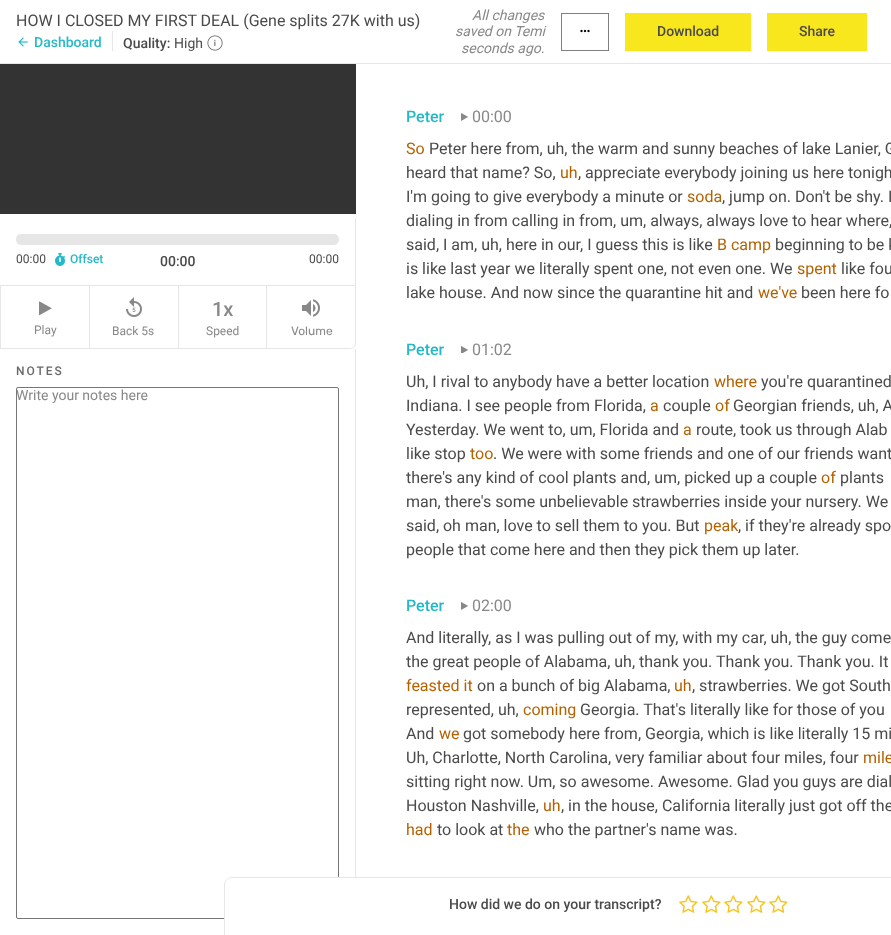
async function draw(canvas) {
  canvas.width = 891;
  canvas.height = 935;
  const ctx = canvas.getContext('2d');
  ctx.miterLimit = 4;
  ctx.fontKerning = 'normal';
  function label(s, x, y, font, color) {
    ctx.font = font;
    ctx.fillStyle = color;
    ctx.fillText(s, x, y);
  }
  function rect(x, y, w, h, color) {
    ctx.fillStyle = color;
    ctx.fillRect(x, y, w, h);
  }
  function roundedRect(x, y, w, h, r, color) {
    ctx.fillStyle = color;
    ctx.beginPath();
    ctx.roundRect(x, y, w, h, r);
    ctx.fill();
  }
  async function image(src, x, y, w, h) {
    const img = new Image();
    img.src = src;
    await img.decode();
    ctx.drawImage(img, x, y, w, h);
  }
  let path;

  rect(0, 0, 891, 935, '#fff');
  rect(0, 63, 891, 1, '#e6e6e6');
  label('HOW I CLOSED MY FIRST DEAL (Gene splits 27K with us)', 16, 26, '16px Roboto', '#4a4a4a');
  await image('assets/img1.png', 18, 37, 10, 10);
  label('Dashboard', 34, 47, '500 14px Roboto', '#25b9c8');
  rect(112, 31, 1, 20, '#e6e6e6');
  label('Quality:', 123, 48, '500 14px Roboto', '#4a4a4a');
  label('High', 174, 48, '14px Roboto', '#4a4a4a');
  await image('assets/img2.png', 207, 35, 16, 16);
  label('All changes', 472, 20, 'italic 14px Roboto', '#888');
  label('saved on Temi', 455, 36, 'italic 14px Roboto', '#888');
  label('seconds ago.', 461, 53, 'italic 14px Roboto', '#888');
  ctx.strokeStyle = '#808080';
  ctx.strokeRect(561.5, 13.5, 47, 37);
  await image('assets/img3.png', 580, 29, 10, 4);
  rect(625, 13, 126, 38, '#f8e71c');
  label('Download', 657, 36, '500 14px Roboto', '#4a4a4a');
  rect(767, 13, 100, 38, '#f8e71c');
  label('Share', 799, 36, '500 14px Roboto', '#4a4a4a');
  rect(0, 64, 356, 150, '#333');
  rect(355, 218, 1, 67, '#e6e6e6');
  roundedRect(16, 234, 323, 11, 5, '#e6e6e6');
  label('00:00', 16, 263, '12px Roboto', '#4a4a4a');
  await image('assets/img4.png', 55, 253, 10, 13);
  label('Offset', 70, 263, '500 12px Roboto', '#25b9c8');
  label('00:00', 160, 266, '500 14px Roboto', '#4a4a4a');
  label('00:00', 309, 263, '12px Roboto', '#4a4a4a');
  ctx.strokeStyle = '#e6e6e6';
  ctx.strokeRect(0.5, 285.5, 89, 63);
  await image('assets/img5.png', 39, 301, 13, 15);
  label('Play', 34, 334, '12px Roboto', '#888');
  rect(90, 285, 177, 1, '#e6e6e6');
  rect(178, 285, 1, 64, '#e6e6e6');
  rect(90, 348, 89, 1, '#e6e6e6');
  await image('assets/img6.png', 126, 297, 16, 20);
  label('Back 5s', 112, 335, '12px Roboto', '#888');
  rect(266, 285, 1, 64, '#e6e6e6');
  rect(179, 348, 88, 1, '#e6e6e6');
  label('1x', 212, 316, '500 20px Roboto', '#888');
  label('Speed', 206, 335, '12px Roboto', '#888');
  ctx.fillStyle = '#e6e6e6';
  path = new Path2D('M267 285H356V343C356 346 353 349 350 349H267ZM267 286H355V343C355 346 353 348 350 348H267Z');
  ctx.fill(path, 'evenodd');
  await image('assets/img7.png', 302, 299, 18, 18);
  label('Volume', 291, 335, '12px Rubik', '#888');
  rect(355, 349, 1, 528, '#e6e6e6');
  ctx.letterSpacing = '2px';
  label('NOTES', 16, 375, '500 12px Roboto', '#6a6a6a');
  ctx.beginPath();
  ctx.roundRect(16.5, 387.5, 322, 531, 1.5);
  ctx.strokeStyle = '#767676';
  ctx.stroke();
  ctx.letterSpacing = '0px';
  label('Write your notes here', 16, 400, '14px Roboto', '#888');
  label('Peter', 406, 122, '500 16px Roboto', '#25b9c8');
  await image('assets/img8.png', 461, 113, 7, 8);
  label('00:00', 472, 122, '16px Roboto', '#888');
  label('So', 406, 154, '16px Roboto', '#b46100');
  label('Peter here from, uh, the warm and sunny beaches of lake Lanier, G', 429, 154, '16px Roboto', '#4a4a4a');
  label('heard that name? So,', 406, 178, '16px Roboto', '#4a4a4a');
  label('uh', 560, 178, '16px Roboto', '#b46100');
  label(', appreciate everybody joining us here tonigh', 578, 178, '16px Roboto', '#4a4a4a');
  label('I\'m going to give everybody a minute or', 406, 202, '16px Roboto', '#4a4a4a');
  label('soda', 687, 202, '16px Roboto', '#b46100');
  label(', jump on. Don\'t be shy. I', 722, 202, '16px Roboto', '#4a4a4a');
  label('dialing in from calling in from, um, always, always love to hear where,', 406, 226, '16px Roboto', '#4a4a4a');
  label('said, I am, uh, here in our, I guess this is like', 406, 250, '16px Roboto', '#4a4a4a');
  label('B camp', 717, 250, '16px Roboto', '#b46100');
  label('beginning to be k', 775, 250, '16px Roboto', '#4a4a4a');
  label('is like last year we literally spent one, not even one. We', 406, 274, '16px Roboto', '#4a4a4a');
  label('spent', 797, 274, '16px Roboto', '#b46100');
  label('like fou', 841, 274, '16px Roboto', '#4a4a4a');
  label('lake house. And now since the quarantine hit and', 406, 298, '16px Roboto', '#4a4a4a');
  label('we\'ve', 758, 298, '16px Roboto', '#b46100');
  label('been here fo', 801, 298, '16px Roboto', '#4a4a4a');
  label('Peter', 406, 355, '500 16px Roboto', '#25b9c8');
  await image('assets/img9.png', 461, 346, 7, 7);
  label('01:02', 472, 355, '16px Roboto', '#888');
  label('Uh, I rival to anybody have a better location', 406, 387, '16px Roboto', '#4a4a4a');
  label('where', 714, 387, '16px Roboto', '#b46100');
  label('you\'re quarantined', 761, 387, '16px Roboto', '#4a4a4a');
  label('Indiana. I see people from Florida,', 406, 411, '16px Roboto', '#4a4a4a');
  label('a', 650, 411, '16px Roboto', '#b46100');
  label('couple', 663, 411, '16px Roboto', '#4a4a4a');
  label('of', 715, 411, '16px Roboto', '#b46100');
  label('Georgian friends, uh, A', 733, 411, '16px Roboto', '#4a4a4a');
  label('Yesterday. We went to, um, Florida and', 406, 435, '16px Roboto', '#4a4a4a');
  label('a', 683, 435, '16px Roboto', '#b46100');
  label('route, took us through Alab', 696, 435, '16px Roboto', '#4a4a4a');
  label('like stop', 406, 459, '16px Roboto', '#4a4a4a');
  label('too', 470, 459, '16px Roboto', '#b46100');
  label('. We were with some friends and one of our friends want', 493, 459, '16px Roboto', '#4a4a4a');
  label('there\'s any kind of cool plants and, um, picked up a couple', 406, 483, '16px Roboto', '#4a4a4a');
  label('of', 821, 483, '16px Roboto', '#b46100');
  label('plants', 840, 483, '16px Roboto', '#4a4a4a');
  label('man, there\'s some unbelievable strawberries inside your nursery. We', 406, 507, '16px Roboto', '#4a4a4a');
  label('said, oh man, love to sell them to you. But', 406, 531, '16px Roboto', '#4a4a4a');
  label('peak', 704, 531, '16px Roboto', '#b46100');
  label(', if they\'re already spo', 738, 531, '16px Roboto', '#4a4a4a');
  label('people that come here and then they pick them up later.', 406, 555, '16px Roboto', '#4a4a4a');
  label('Peter', 406, 611, '500 16px Roboto', '#25b9c8');
  await image('assets/img8.png', 461, 602, 7, 8);
  label('02:00', 472, 611, '16px Roboto', '#888');
  label('And literally, as I was pulling out of my, with my car, uh, the guy come', 406, 643, '16px Roboto', '#4a4a4a');
  label('the great people of Alabama, uh, thank you. Thank you. Thank you. It', 406, 667, '16px Roboto', '#4a4a4a');
  label('feasted it', 406, 691, '16px Roboto', '#b46100');
  label('on a bunch of big Alabama,', 477, 691, '16px Roboto', '#4a4a4a');
  label('uh', 674, 691, '16px Roboto', '#b46100');
  label(', strawberries. We got South', 692, 691, '16px Roboto', '#4a4a4a');
  label('represented, uh,', 406, 715, '16px Roboto', '#4a4a4a');
  label('coming', 523, 715, '16px Roboto', '#b46100');
  label('Georgia. That\'s literally like for those of you', 580, 715, '16px Roboto', '#4a4a4a');
  label('And', 406, 739, '16px Roboto', '#4a4a4a');
  label('we', 439, 739, '16px Roboto', '#b46100');
  label('got somebody here from, Georgia, which is like literally 15 mi', 463, 739, '16px Roboto', '#4a4a4a');
  label('Uh, Charlotte, North Carolina, very familiar about four miles, four', 406, 763, '16px Roboto', '#4a4a4a');
  label('mile', 863, 763, '16px Roboto', '#b46100');
  label('sitting right now. Um, so awesome. Awesome. Glad you guys are dial', 406, 787, '16px Roboto', '#4a4a4a');
  label('Houston Nashville,', 406, 811, '16px Roboto', '#4a4a4a');
  label('uh', 543, 811, '16px Roboto', '#b46100');
  label(', in the house, California literally just got off the', 561, 811, '16px Roboto', '#4a4a4a');
  label('had', 406, 835, '16px Roboto', '#b46100');
  label('to look at', 437, 835, '16px Roboto', '#4a4a4a');
  label('the', 507, 835, '16px Roboto', '#b46100');
  label('who the partner\'s name was.', 534, 835, '16px Roboto', '#4a4a4a');
  ctx.fillStyle = '#fff';
  path = new Path2D('M232 878H891C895 878 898 881 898 885V935H225V885C225 881 228 878 232 878Z');
  ctx.fill(path);
  ctx.fillStyle = '#e6e6e6';
  path = new Path2D('M232 877H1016C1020 877 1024 881 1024 885V935H224V885C224 881 228 877 232 877ZM232 878H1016C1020 878 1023 881 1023 885V935H225V885C225 881 228 878 232 878Z');
  ctx.fill(path, 'evenodd');
  label('How did we do on your transcript?', 449, 909, '500 14px Roboto', '#4a4a4a');
  await image('assets/img10.png', 679, 895, 19, 18);
  await image('assets/img10.png', 702, 895, 19, 18);
  await image('assets/img10.png', 724, 895, 19, 18);
  await image('assets/img10.png', 747, 895, 19, 18);
  await image('assets/img10.png', 769, 895, 19, 18);
}

draw(document.querySelector('canvas'));
